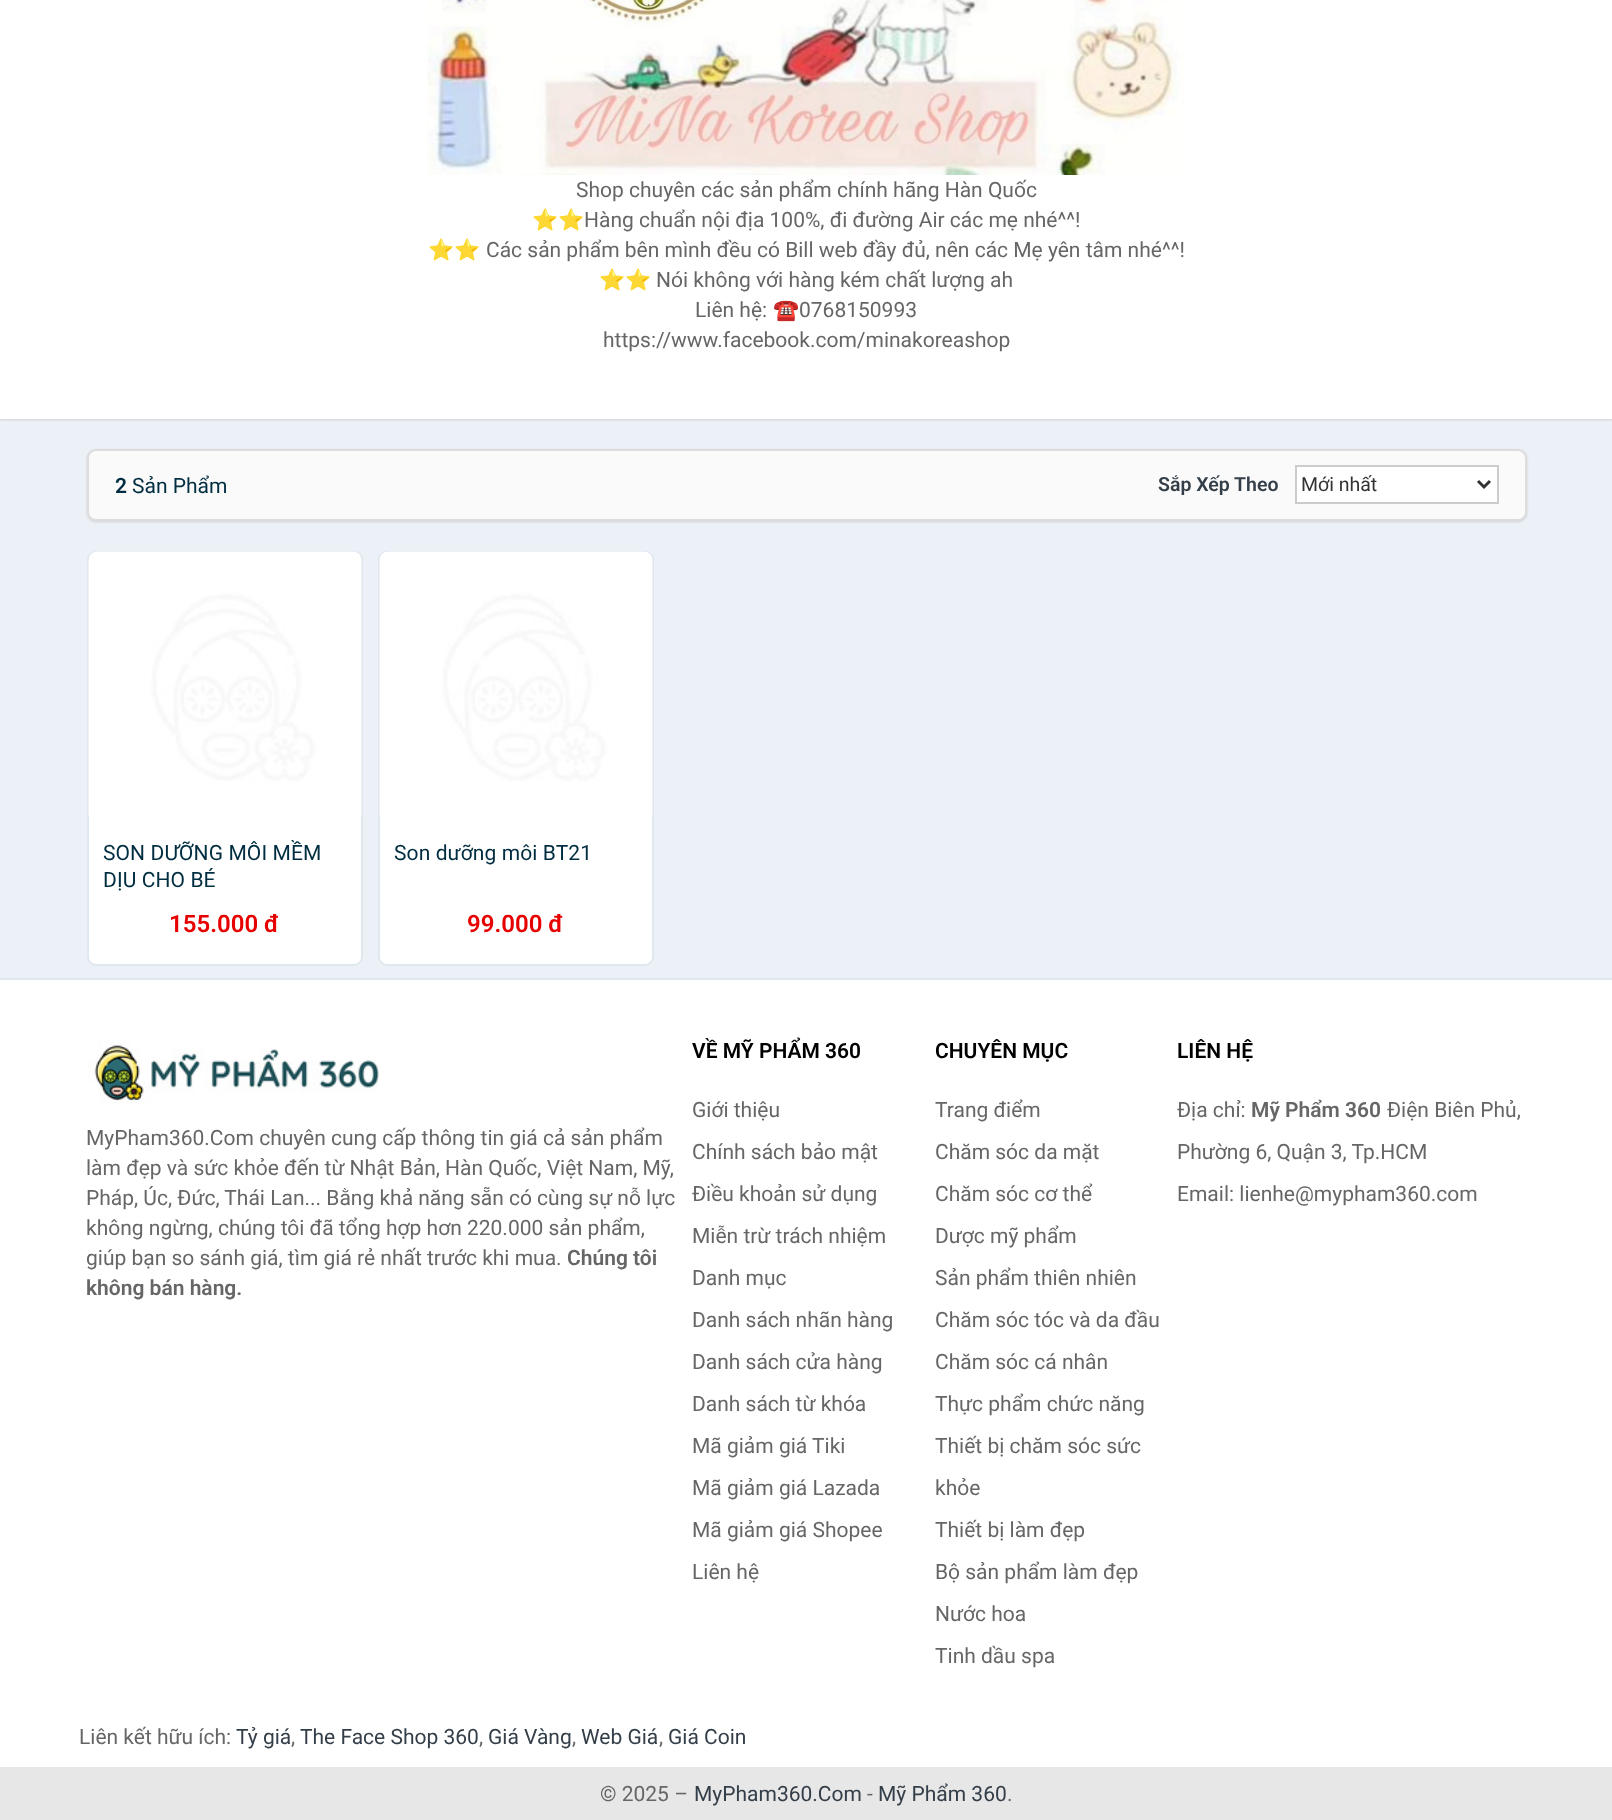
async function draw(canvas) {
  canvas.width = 1612;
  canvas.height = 1820;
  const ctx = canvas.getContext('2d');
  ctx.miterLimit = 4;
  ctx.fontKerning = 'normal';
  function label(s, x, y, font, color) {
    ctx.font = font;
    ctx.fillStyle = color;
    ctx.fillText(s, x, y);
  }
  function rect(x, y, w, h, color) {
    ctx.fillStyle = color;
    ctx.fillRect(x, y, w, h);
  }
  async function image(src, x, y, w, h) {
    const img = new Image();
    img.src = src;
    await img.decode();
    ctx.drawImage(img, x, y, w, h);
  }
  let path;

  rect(0, 0, 1612, 1820, '#fff');
  rect(0, 419, 1612, 559, '#ecf1f7');
  ctx.fillStyle = '#b4b4b480';
  ctx.filter = 'blur(1px)';
  ctx.beginPath();
  ctx.rect(0, -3, 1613, 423);
  ctx.fill();
  ctx.filter = 'none';
  rect(0, 0, 1612, 419, '#fff');
  await image('assets/img1.png', 427, 0, 758, 175);
  label('Shop chuyên các sản phẩm chính hãng Hàn Quốc', 576, 197, '21px Roboto', '#666');
  label('⭐️⭐️', 532, 227, '21px Noto Color Emoji', '#666');
  label('Hàng chuẩn nội địa 100%, đi đường Air các mẹ nhé^^!', 584, 227, '21px Roboto', '#666');
  label('⭐️⭐️', 428, 257, '21px Noto Color Emoji', '#666');
  label('Các sản phẩm bên mình đều có Bill web đầy đủ, nên các Mẹ yên tâm nhé^^!', 486, 257, '21px Roboto', '#666');
  label('⭐️⭐️', 599, 287, '21px Noto Color Emoji', '#666');
  label('Nói không với hàng kém chất lượng ah', 656, 287, '21px Roboto', '#666');
  label('Liên hệ:', 695, 317, '21px Roboto', '#666');
  label('☎️', 773, 317, '21px Noto Color Emoji', '#666');
  label('0768150993', 799, 317, '21px Roboto', '#666');
  label('https://www.facebook.com/minakoreashop', 603, 347, '21px Roboto', '#666');
  ctx.fillStyle = '#b4b4b480';
  ctx.filter = 'blur(1px)';
  ctx.beginPath();
  ctx.roundRect(87, 450, 1440, 72, 9);
  ctx.fill();
  ctx.filter = 'none';
  ctx.fillStyle = '#fafafa';
  ctx.beginPath();
  ctx.roundRect(88, 450, 1438, 70, 8);
  ctx.fill();
  ctx.strokeStyle = '#ddd';
  ctx.lineWidth = 2;
  ctx.stroke();
  label('2', 115, 493, '600 21px Roboto', '#012d41');
  label('Sản Phẩm', 132, 493, '21px Roboto', '#012d41');
  label('Sắp Xếp Theo', 1158, 491, '600 19.5px Roboto', '#333e48');
  ctx.fillStyle = '#fff';
  ctx.beginPath();
  ctx.rect(1296, 466, 202, 37);
  ctx.fill();
  ctx.strokeStyle = '#ccc';
  ctx.stroke();
  path = new Path2D('M1478 481L1484 487L1490 481');
  ctx.strokeStyle = '#333';
  ctx.lineWidth = 3;
  ctx.stroke(path);
  label('Mới nhất', 1301, 491, '19.5px Roboto', '#333');
  ctx.fillStyle = '#fff';
  ctx.beginPath();
  ctx.roundRect(88, 552, 274, 413, 8);
  ctx.fill();
  ctx.strokeStyle = '#dfe7ef';
  ctx.lineWidth = 2;
  ctx.stroke();
  await image('assets/img2.png', 88, 551, 274, 266);
  await image('assets/img3.png', 88, 551, 274, 265);
  ctx.save();
  ctx.beginPath();
  ctx.rect(89, 840, 273, 54);
  ctx.clip();
  ctx.letterSpacing = '0.1px';
  label('SON DƯỠNG MÔI MỀM', 103, 860, '21px Roboto', '#012d41');
  ctx.restore();
  ctx.letterSpacing = '0.1px';
  label('DỊU CHO BÉ', 103, 887, '21px Roboto', '#012d41');
  ctx.letterSpacing = '0px';
  label('155.000 đ', 169, 932, '600 24px Roboto', '#e60000');
  ctx.fillStyle = '#fff';
  ctx.beginPath();
  ctx.roundRect(379, 552, 274, 413, 8);
  ctx.fill();
  ctx.stroke();
  await image('assets/img2.png', 379, 551, 274, 266);
  await image('assets/img3.png', 379, 551, 274, 265);
  ctx.letterSpacing = '0.1px';
  label('Son dưỡng môi BT21', 394, 860, '21px Roboto', '#012d41');
  ctx.letterSpacing = '0px';
  label('99.000 đ', 467, 932, '600 24px Roboto', '#e60000');
  rect(0, 978, 1612, 2, '#dfe7ef');
  await image('assets/img4.png', 87, 1039, 293, 65);
  label('MyPham360.Com chuyên cung cấp thông tin giá cả sản phẩm', 86, 1145, '21px Roboto', '#666');
  label('làm đẹp và sức khỏe đến từ Nhật Bản, Hàn Quốc, Việt Nam, Mỹ,', 86, 1175, '21px Roboto', '#666');
  label('Pháp, Úc, Đức, Thái Lan... Bằng khả năng sẵn có cùng sự nỗ lực', 86, 1205, '21px Roboto', '#666');
  label('không ngừng, chúng tôi đã tổng hợp hơn 220.000 sản phẩm,', 86, 1235, '21px Roboto', '#666');
  label('giúp bạn so sánh giá, tìm giá rẻ nhất trước khi mua.', 86, 1265, '21px Roboto', '#666');
  label('Chúng tôi', 567, 1265, '600 21px Roboto', '#666');
  label('không bán hàng.', 86, 1295, '600 21px Roboto', '#666');
  label('VỀ MỸ PHẨM 360', 692, 1058, '600 21px Roboto', '#000');
  label('Giới thiệu', 692, 1117, '21px Roboto', '#666');
  label('Chính sách bảo mật', 692, 1159, '21px Roboto', '#666');
  label('Điều khoản sử dụng', 692, 1201, '21px Roboto', '#666');
  label('Miễn trừ trách nhiệm', 692, 1243, '21px Roboto', '#666');
  label('Danh mục', 692, 1285, '21px Roboto', '#666');
  label('Danh sách nhãn hàng', 692, 1327, '21px Roboto', '#666');
  label('Danh sách cửa hàng', 692, 1369, '21px Roboto', '#666');
  label('Danh sách từ khóa', 692, 1411, '21px Roboto', '#666');
  label('Mã giảm giá Tiki', 692, 1453, '21px Roboto', '#666');
  label('Mã giảm giá Lazada', 692, 1495, '21px Roboto', '#666');
  label('Mã giảm giá Shopee', 692, 1537, '21px Roboto', '#666');
  label('Liên hệ', 692, 1579, '21px Roboto', '#666');
  label('CHUYÊN MỤC', 935, 1058, '600 21px Roboto', '#000');
  label('Trang điểm', 935, 1117, '21px Roboto', '#666');
  label('Chăm sóc da mặt', 935, 1159, '21px Roboto', '#666');
  label('Chăm sóc cơ thể', 935, 1201, '21px Roboto', '#666');
  label('Dược mỹ phẩm', 935, 1243, '21px Roboto', '#666');
  label('Sản phẩm thiên nhiên', 935, 1285, '21px Roboto', '#666');
  label('Chăm sóc tóc và da đầu', 935, 1327, '21px Roboto', '#666');
  label('Chăm sóc cá nhân', 935, 1369, '21px Roboto', '#666');
  label('Thực phẩm chức năng', 935, 1411, '21px Roboto', '#666');
  label('Thiết bị chăm sóc sức', 935, 1453, '21px Roboto', '#666');
  label('khỏe', 935, 1495, '21px Roboto', '#666');
  label('Thiết bị làm đẹp', 935, 1537, '21px Roboto', '#666');
  label('Bộ sản phẩm làm đẹp', 935, 1579, '21px Roboto', '#666');
  label('Nước hoa', 935, 1621, '21px Roboto', '#666');
  label('Tinh dầu spa', 935, 1663, '21px Roboto', '#666');
  label('LIÊN HỆ', 1177, 1058, '600 21px Roboto', '#000');
  label('Địa chỉ:', 1177, 1117, '21px Roboto', '#666');
  label('Mỹ Phẩm 360', 1251, 1117, '600 21px Roboto', '#666');
  label('Điện Biên Phủ,', 1387, 1117, '21px Roboto', '#666');
  label('Phường 6, Quận 3, Tp.HCM', 1177, 1159, '21px Roboto', '#666');
  label('Email: lienhe@mypham360.com', 1177, 1201, '21px Roboto', '#666');
  label('Liên kết hữu ích:', 79, 1744, '21px Roboto', '#666');
  label('Tỷ giá', 236, 1744, '21px Roboto', '#333e48');
  label(',', 291, 1744, '21px Roboto', '#666');
  label('The Face Shop 360', 300, 1744, '21px Roboto', '#333e48');
  label(',', 479, 1744, '21px Roboto', '#666');
  label('Giá Vàng', 488, 1744, '21px Roboto', '#333e48');
  label(',', 572, 1744, '21px Roboto', '#666');
  label('Web Giá', 581, 1744, '21px Roboto', '#333e48');
  label(',', 659, 1744, '21px Roboto', '#666');
  label('Giá Coin', 668, 1744, '21px Roboto', '#333e48');
  rect(0, 1767, 1612, 53, '#e7e7e7');
  label('© 2025 –', 600, 1801, '21px Roboto', '#666');
  label('MyPham360.Com', 694, 1801, '21px Roboto', '#333e48');
  label('-', 867, 1801, '21px Roboto', '#666');
  label('Mỹ Phẩm 360', 878, 1801, '21px Roboto', '#333e48');
  label('.', 1007, 1801, '21px Roboto', '#666');
}

draw(document.querySelector('canvas'));
